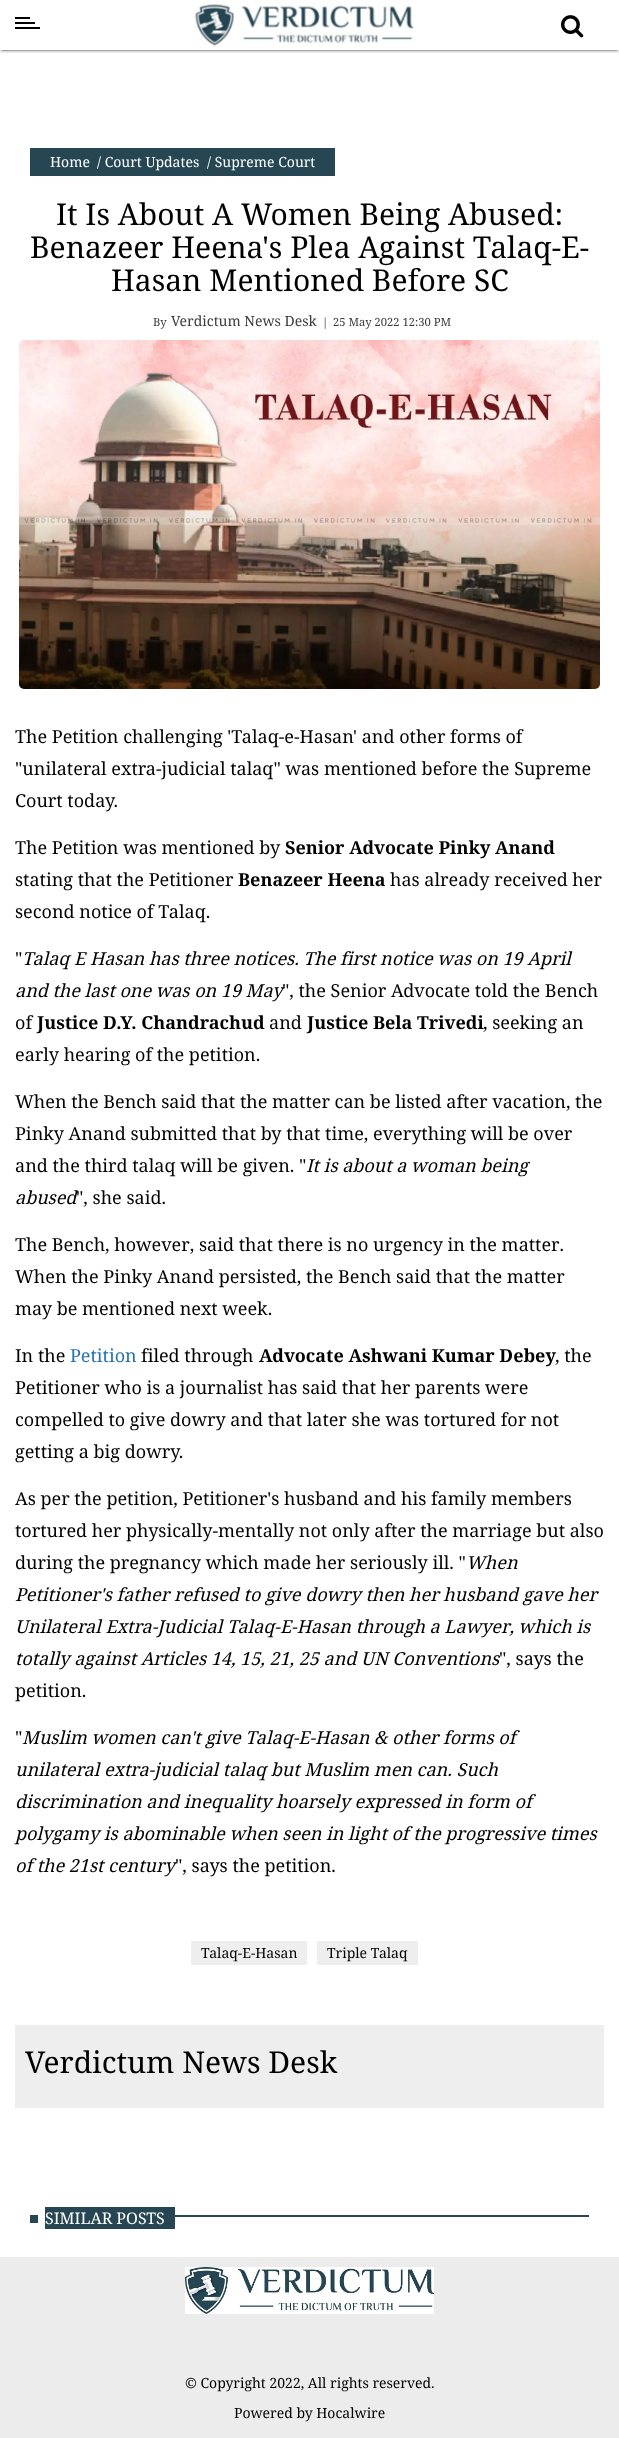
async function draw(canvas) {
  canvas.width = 619;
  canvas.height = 2438;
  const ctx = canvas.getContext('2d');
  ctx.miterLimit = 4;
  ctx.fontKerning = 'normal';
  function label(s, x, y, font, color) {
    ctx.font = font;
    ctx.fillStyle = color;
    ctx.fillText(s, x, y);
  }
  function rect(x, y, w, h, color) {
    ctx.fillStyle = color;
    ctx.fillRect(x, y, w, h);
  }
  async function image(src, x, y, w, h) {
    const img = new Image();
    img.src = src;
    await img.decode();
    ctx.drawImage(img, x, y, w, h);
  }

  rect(0, 0, 619, 2438, '#fff');
  ctx.save();
  ctx.beginPath();
  ctx.rect(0, 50, 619, 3);
  ctx.clip();
  ctx.fillStyle = '#0000001f';
  ctx.filter = 'blur(2.5px)';
  ctx.beginPath();
  ctx.rect(0, 1, 619, 50);
  ctx.fill();
  ctx.filter = 'none';
  ctx.restore();
  ctx.save();
  ctx.beginPath();
  ctx.rect(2, 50, 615, 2);
  ctx.clip();
  ctx.fillStyle = '#00000033';
  ctx.filter = 'blur(0.5px)';
  ctx.beginPath();
  ctx.rect(2, 5, 615, 46);
  ctx.fill();
  ctx.filter = 'none';
  ctx.restore();
  ctx.save();
  ctx.beginPath();
  ctx.rect(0, 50, 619, 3);
  ctx.clip();
  ctx.fillStyle = '#00000024';
  ctx.filter = 'blur(1px)';
  ctx.beginPath();
  ctx.rect(0, 2, 619, 50);
  ctx.fill();
  ctx.filter = 'none';
  ctx.restore();
  rect(15, 27, 25, 2, '#000');
  rect(15, 17, 15, 2, '#000');
  rect(15, 22, 20, 2, '#000');
  await image('assets/img1.png', 195, 4, 219, 42);
  await image('assets/img2.png', 561, 15, 23, 23);
  rect(30, 148, 305, 28, '#264653');
  label('Home', 50, 167, '14px Noto Serif', '#fff');
  label('/ Court Updates', 97, 167, '14px Noto Serif', '#fff');
  label('/ Supreme Court', 207, 167, '14px Noto Serif', '#fff');
  label('It Is About A Women Being Abused:', 56, 225, '30px Noto Serif', '#000');
  label('Benazeer Heena\'s Plea Against Talaq-E-', 30, 258, '30px Noto Serif', '#000');
  label('Hasan Mentioned Before SC', 111, 291, '30px Noto Serif', '#000');
  label('By', 153, 326, '11.25px Noto Serif', '#3c3c3c');
  label('Verdictum News Desk', 171, 326, '14px Noto Serif', '#3c3c3c');
  label('|', 322, 326, '11.25px Noto Serif', '#3c3c3c');
  label('25 May 2022 12:30 PM', 333, 326, '11.25px Noto Serif', '#3c3c3c');
  await image('assets/img3.png', 19, 340, 581, 349);
  label('The Petition challenging \'Talaq-e-Hasan\' and other forms of', 15, 743, '18px Noto Serif', '#000');
  label('"unilateral extra-judicial talaq" was mentioned before the Supreme', 15, 775, '18px Noto Serif', '#000');
  label('Court today.', 15, 807, '18px Noto Serif', '#000');
  label('The Petition was mentioned by', 15, 854, '18px Noto Serif', '#000');
  label('Senior Advocate Pinky Anand', 285, 854, 'bold 18px Noto Serif', '#000');
  label('stating that the Petitioner', 15, 886, '18px Noto Serif', '#000');
  label('Benazeer Heena', 238, 886, 'bold 18px Noto Serif', '#000');
  label('has already received her', 390, 886, '18px Noto Serif', '#000');
  label('second notice of Talaq.', 15, 918, '18px Noto Serif', '#000');
  label('"', 15, 965, '18px Noto Serif', '#000');
  label('Talaq E Hasan has three notices. The first notice was on 19 April', 22, 965, 'italic 18px Noto Serif', '#000');
  label('and the last one was on 19 May', 15, 997, 'italic 18px Noto Serif', '#000');
  label('", the Senior Advocate told the Bench', 282, 997, '18px Noto Serif', '#000');
  label('of', 15, 1029, '18px Noto Serif', '#000');
  label('Justice D.Y. Chandrachud', 37, 1029, 'bold 18px Noto Serif', '#000');
  label('and', 269, 1029, '18px Noto Serif', '#000');
  label('Justice Bela Trivedi', 307, 1029, 'bold 18px Noto Serif', '#000');
  label(', seeking an', 483, 1029, '18px Noto Serif', '#000');
  label('early hearing of the petition.', 15, 1061, '18px Noto Serif', '#000');
  label('When the Bench said that the matter can be listed after vacation, the', 15, 1108, '18px Noto Serif', '#000');
  label('Pinky Anand submitted that by that time, everything will be over', 15, 1140, '18px Noto Serif', '#000');
  label('and the third talaq will be given. "', 15, 1172, '18px Noto Serif', '#000');
  label('It is about a woman being', 306, 1172, 'italic 18px Noto Serif', '#000');
  label('abused', 15, 1204, 'italic 18px Noto Serif', '#000');
  label('", she said.', 76, 1204, '18px Noto Serif', '#000');
  label('The Bench, however, said that there is no urgency in the matter.', 15, 1251, '18px Noto Serif', '#000');
  label('When the Pinky Anand persisted, the Bench said that the matter', 15, 1283, '18px Noto Serif', '#000');
  label('may be mentioned next week.', 15, 1315, '18px Noto Serif', '#000');
  label('In the', 15, 1362, '18px Noto Serif', '#000');
  label('Petition', 70, 1362, '18px Noto Serif', '#2673b0');
  label('filed through', 141, 1362, '18px Noto Serif', '#000');
  label('Advocate Ashwani Kumar Debey', 259, 1362, 'bold 18px Noto Serif', '#000');
  label(', the', 555, 1362, '18px Noto Serif', '#000');
  label('Petitioner who is a journalist has said that her parents were', 15, 1394, '18px Noto Serif', '#000');
  label('compelled to give dowry and that later she was tortured for not', 15, 1426, '18px Noto Serif', '#000');
  label('getting a big dowry.', 15, 1458, '18px Noto Serif', '#000');
  label('As per the petition, Petitioner\'s husband and his family members', 15, 1505, '18px Noto Serif', '#000');
  label('tortured her physically-mentally not only after the marriage but also', 15, 1537, '18px Noto Serif', '#000');
  label('during the pregnancy which made her seriously ill. "', 15, 1569, '18px Noto Serif', '#000');
  label('When', 466, 1569, 'italic 18px Noto Serif', '#000');
  label('Petitioner\'s father refused to give dowry then her husband gave her', 15, 1601, 'italic 18px Noto Serif', '#000');
  label('Unilateral Extra-Judicial Talaq-E-Hasan through a Lawyer, which is', 15, 1633, 'italic 18px Noto Serif', '#000');
  label('totally against Articles 14, 15, 21, 25 and UN Conventions', 15, 1665, 'italic 18px Noto Serif', '#000');
  label('", says the', 499, 1665, '18px Noto Serif', '#000');
  label('petition.', 15, 1697, '18px Noto Serif', '#000');
  label('"', 15, 1744, '18px Noto Serif', '#000');
  label('Muslim women can\'t give Talaq-E-Hasan & other forms of', 22, 1744, 'italic 18px Noto Serif', '#000');
  label('unilateral extra-judicial talaq but Muslim men can. Such', 15, 1776, 'italic 18px Noto Serif', '#000');
  label('discrimination and inequality hoarsely expressed in form of', 15, 1808, 'italic 18px Noto Serif', '#000');
  label('polygamy is abominable when seen in light of the progressive times', 15, 1840, 'italic 18px Noto Serif', '#000');
  label('of the 21st century', 15, 1872, 'italic 18px Noto Serif', '#000');
  label('", says the petition.', 175, 1872, '18px Noto Serif', '#000');
  rect(191, 1941, 116, 24, '#eee');
  label('Talaq-E-Hasan', 201, 1958, '14px Noto Serif', '#000');
  rect(317, 1941, 101, 24, '#eee');
  label('Triple Talaq', 327, 1958, '14px Noto Serif', '#000');
  rect(15, 2025, 589, 83, '#eee');
  label('Verdictum News Desk', 25, 2073, '30px Noto Serif', '#000');
  rect(45, 2207, 130, 22, '#274653');
  label('SIMILAR POSTS', 45, 2224, '16px Noto Serif', '#fff');
  rect(30, 2215, 8, 8, '#274653');
  rect(175, 2215, 414, 2, '#274653');
  rect(0, 2257, 619, 181, '#ececec');
  await image('assets/img4.png', 185, 2267, 249, 47);
  label('© Copyright 2022, All rights reserved.', 185, 2388, '14px Noto Serif', '#000');
  label('Powered by Hocalwire', 234, 2418, '14px Noto Serif', '#000');
}

draw(document.querySelector('canvas'));
